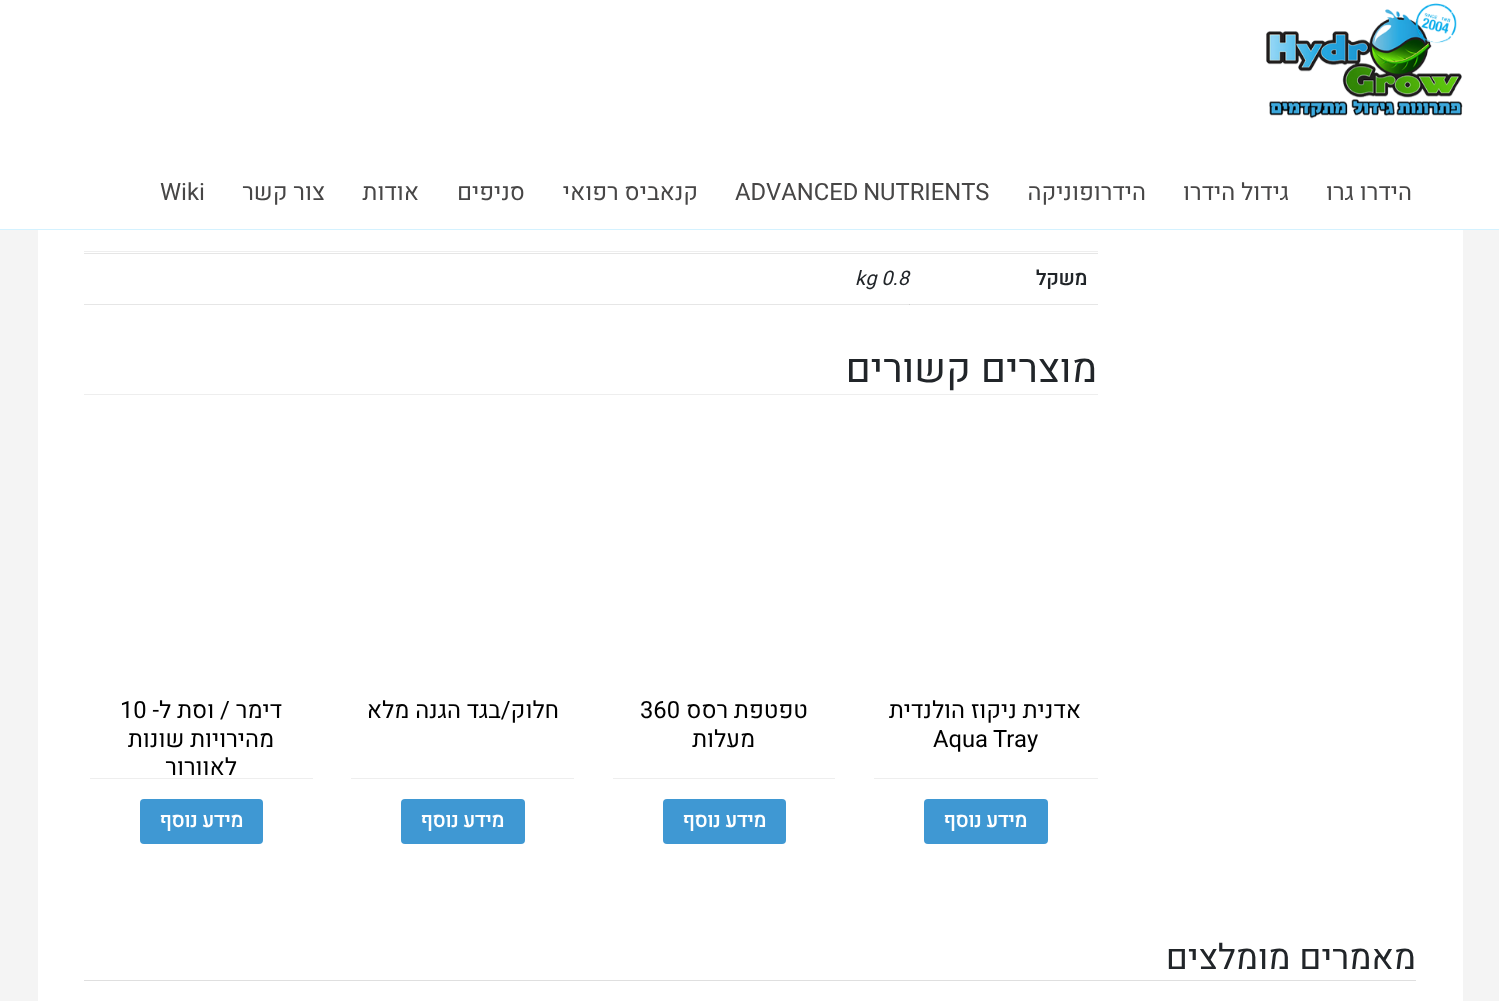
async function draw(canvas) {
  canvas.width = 1499;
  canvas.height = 1001;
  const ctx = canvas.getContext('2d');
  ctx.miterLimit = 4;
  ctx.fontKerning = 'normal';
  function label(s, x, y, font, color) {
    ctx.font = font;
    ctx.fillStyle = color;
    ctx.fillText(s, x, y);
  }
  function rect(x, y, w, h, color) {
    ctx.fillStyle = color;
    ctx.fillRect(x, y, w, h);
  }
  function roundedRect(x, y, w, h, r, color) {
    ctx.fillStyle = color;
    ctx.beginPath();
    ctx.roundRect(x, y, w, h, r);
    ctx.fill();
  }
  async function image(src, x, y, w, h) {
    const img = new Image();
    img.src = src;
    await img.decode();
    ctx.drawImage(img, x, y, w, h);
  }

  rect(0, 0, 1499, 1001, '#f4f4f4');
  rect(0, 0, 1499, 229, '#fff');
  rect(0, 229, 1499, 1, '#d4f2ff');
  await image('assets/img1.png', 1266, 3, 197, 116);
  ctx.direction = 'rtl';
  label('הידרו גרו', 1412, 200, '23.75px Heebo', '#474646');
  label('גידול הידרו', 1289, 200, '23.75px Heebo', '#474646');
  label('הידרופוניקה', 1146, 200, '23.75px Heebo', '#474646');
  ctx.wordSpacing = '-1px';
  ctx.direction = 'ltr';
  label('ADVANCED NUTRIENTS', 735, 200, '23.75px Heebo', '#474646');
  ctx.wordSpacing = '0px';
  ctx.direction = 'rtl';
  label('קנאביס רפואי', 698, 200, '23.75px Heebo', '#474646');
  label('סניפים', 525, 200, '23.75px Heebo', '#474646');
  label('אודות', 419, 200, '23.75px Heebo', '#474646');
  label('צור קשר', 325, 200, '23.75px Heebo', '#474646');
  ctx.direction = 'ltr';
  label('Wiki', 160, 200, '23.75px Heebo', '#474646');
  rect(38, 230, 1425, 771, '#fff');
  rect(84, 304, 1014, 1, '#e6e6e6');
  rect(84, 251, 1014, 1, '#eee');
  rect(84, 253, 1014, 1, '#e6e6e6');
  ctx.direction = 'rtl';
  label('משקל', 1087, 285, 'bold 20px Heebo', '#212529');
  rect(909, 304, 1, 1, '#cfcfcf');
  ctx.direction = 'ltr';
  label('kg 0.8', 855, 285, 'italic 20px Heebo', '#212529');
  rect(84, 394, 1014, 1, '#eee');
  ctx.direction = 'rtl';
  label('מוצרים קשורים', 1097, 382, '40px Heebo', '#212529');
  rect(874, 778, 224, 1, '#eee');
  label('אדנית ניקוז הולנדית', 1081, 718, '23.75px Heebo', '#000');
  ctx.wordSpacing = '-1px';
  ctx.direction = 'ltr';
  label('Aqua Tray', 933, 747, '23.75px Heebo', '#000');
  roundedRect(924, 799, 124, 45, 4, '#3f98d3');
  ctx.wordSpacing = '0px';
  ctx.direction = 'rtl';
  label('מידע נוסף', 1027, 827, 'bold 20px Heebo', '#fff');
  rect(613, 778, 222, 1, '#eee');
  label('טפטפת רסס', 808, 718, '23.75px Heebo', '#000');
  ctx.direction = 'ltr';
  label('360', 640, 718, '23.75px Heebo', '#000');
  ctx.direction = 'rtl';
  label('מעלות', 755, 747, '23.75px Heebo', '#000');
  roundedRect(663, 799, 123, 45, 4, '#3f98d3');
  label('מידע נוסף', 766, 827, 'bold 20px Heebo', '#fff');
  rect(351, 778, 223, 1, '#eee');
  label('חלוק/בגד הגנה מלא', 559, 718, '23.75px Heebo', '#000');
  roundedRect(401, 799, 124, 45, 4, '#3f98d3');
  label('מידע נוסף', 504, 827, 'bold 20px Heebo', '#fff');
  rect(90, 778, 223, 1, '#eee');
  label('דימר / וסת ל-', 282, 718, '23.75px Heebo', '#000');
  ctx.direction = 'ltr';
  label('10', 120, 718, '23.75px Heebo', '#000');
  ctx.direction = 'rtl';
  label('מהירויות שונות', 274, 747, '23.75px Heebo', '#000');
  label('לאוורור', 237, 775, '23.75px Heebo', '#000');
  roundedRect(140, 799, 123, 45, 4, '#3f98d3');
  label('מידע נוסף', 243, 827, 'bold 20px Heebo', '#fff');
  rect(84, 980, 1332, 1, '#dfdfdf');
  label('מאמרים מומלצים', 1416, 969, '35px Heebo', '#212529');
}

draw(document.querySelector('canvas'));
